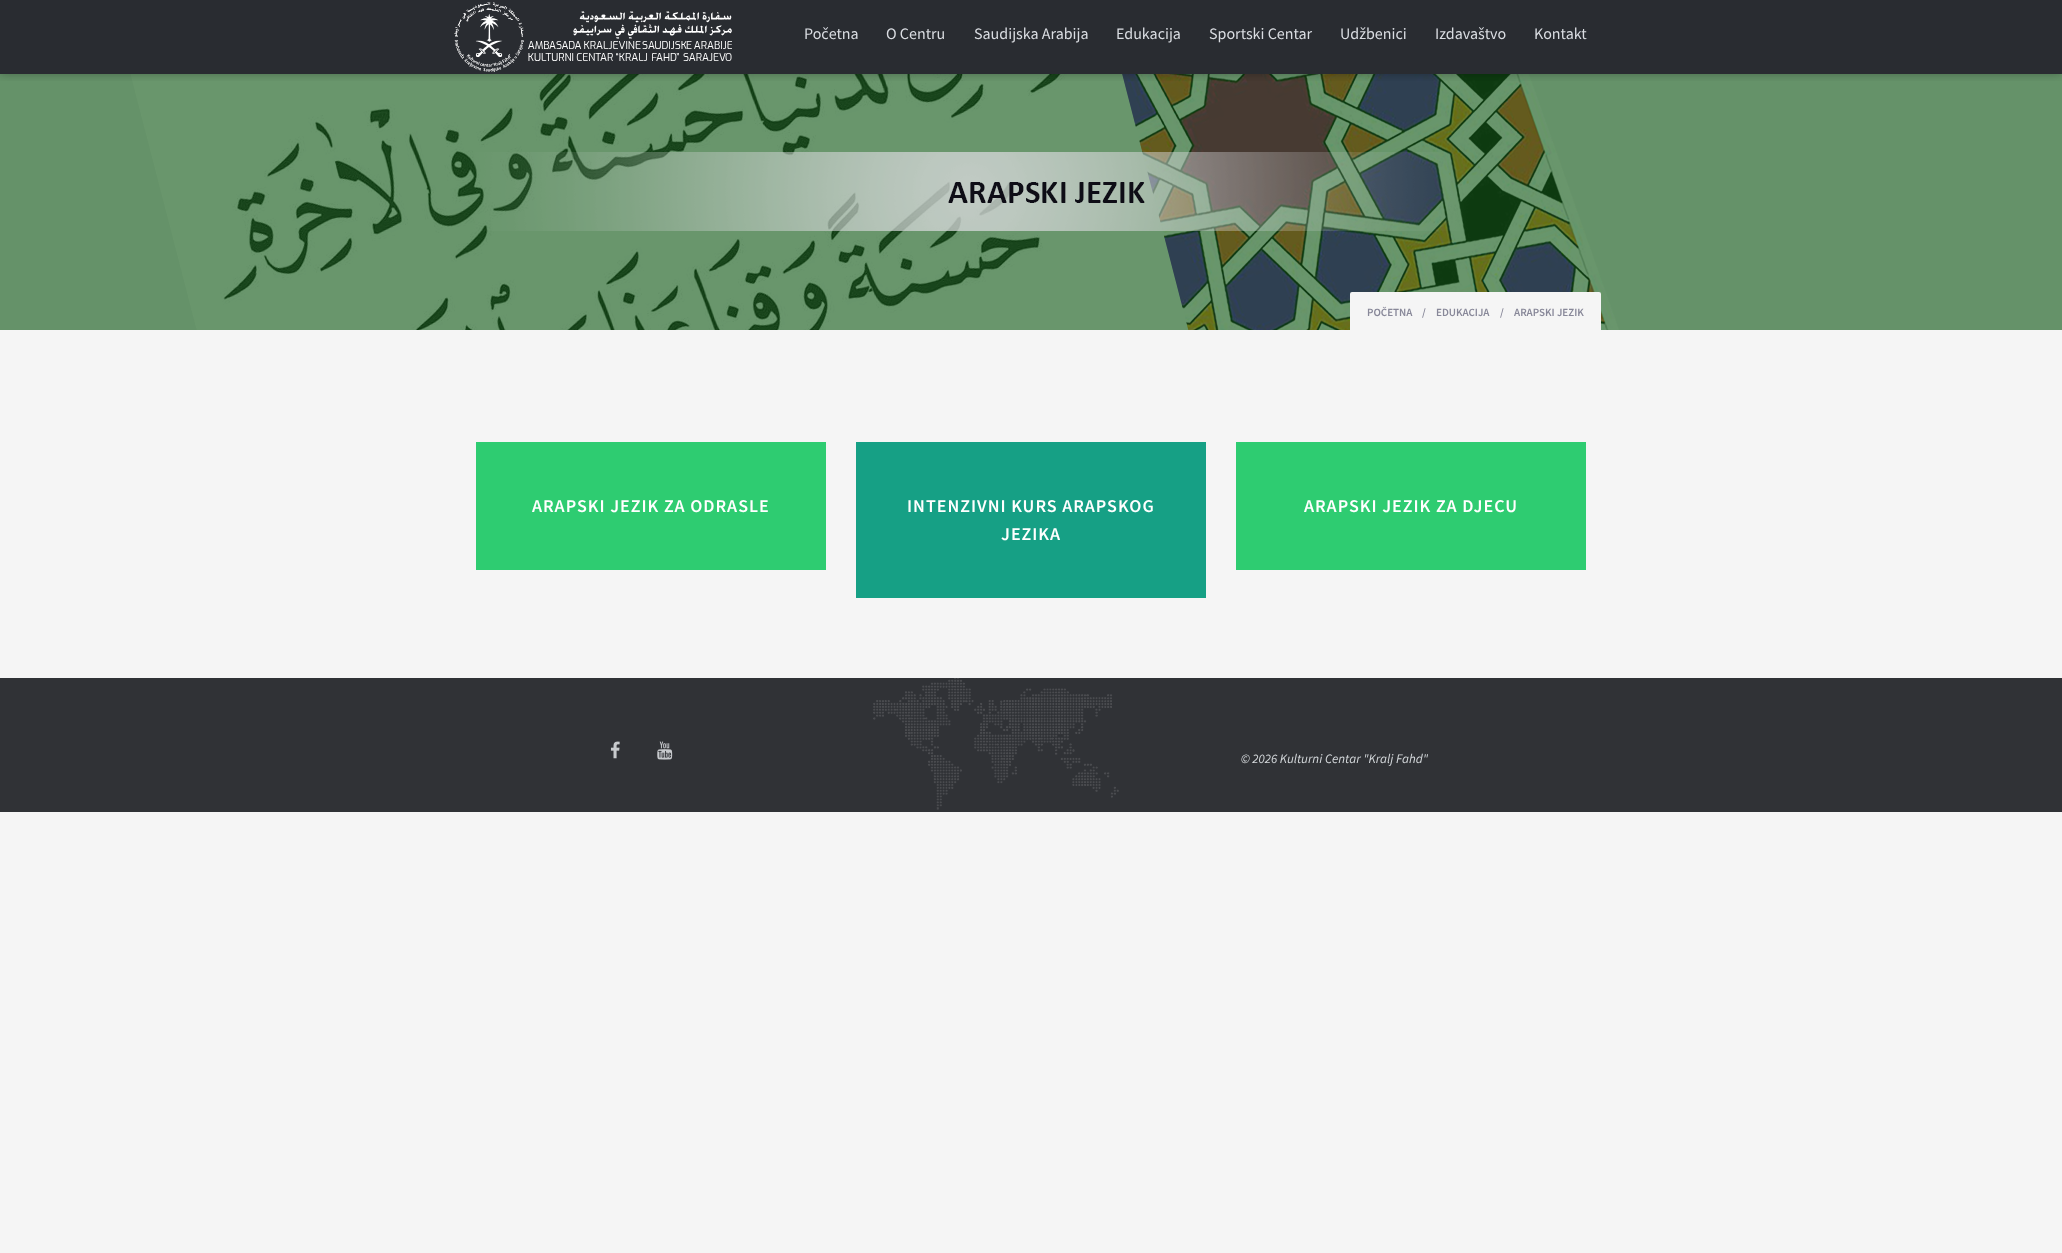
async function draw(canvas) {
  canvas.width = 2062;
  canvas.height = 1253;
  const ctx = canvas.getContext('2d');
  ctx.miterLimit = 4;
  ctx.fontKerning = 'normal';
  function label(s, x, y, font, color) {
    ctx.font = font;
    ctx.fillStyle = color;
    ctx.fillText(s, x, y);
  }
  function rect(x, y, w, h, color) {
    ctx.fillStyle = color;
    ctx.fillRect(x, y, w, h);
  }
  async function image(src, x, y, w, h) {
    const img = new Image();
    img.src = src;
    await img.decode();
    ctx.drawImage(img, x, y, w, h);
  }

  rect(0, 0, 2062, 1253, '#f5f5f5');
  rect(0, 74, 2062, 256, '#d1d1d4');
  rect(0, 0, 2062, 74, '#292c31');
  await image('assets/img2.png', 0, 74, 2062, 256);
  ctx.save();
  ctx.beginPath();
  ctx.rect(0, 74, 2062, 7);
  ctx.clip();
  ctx.fillStyle = '#0000004d';
  ctx.filter = 'blur(5px)';
  ctx.beginPath();
  ctx.rect(0, 0, 2062, 74);
  ctx.fill();
  ctx.filter = 'none';
  ctx.restore();
  await image('assets/img1.png', 454, 2, 278, 70);
  label('Početna', 804, 39, '16px Source Sans Pro', '#dadde2');
  label('O Centru', 886, 39, '16px Source Sans Pro', '#dadde2');
  label('Saudijska Arabija', 974, 39, '16px Source Sans Pro', '#dadde2');
  label('Edukacija', 1116, 39, '16px Source Sans Pro', '#dadde2');
  label('Sportski Centar', 1209, 39, '16px Source Sans Pro', '#dadde2');
  label('Udžbenici', 1340, 39, '16px Source Sans Pro', '#dadde2');
  label('Izdavaštvo', 1435, 39, '16px Source Sans Pro', '#dadde2');
  label('Kontakt', 1534, 39, '16px Source Sans Pro', '#dadde2');
  ctx.fillStyle = '#f5f5f5';
  ctx.beginPath();
  ctx.roundRect(1350, 292, 251, 40, [2, 2, 0, 0]);
  ctx.fill();
  label('POČETNA', 1367, 316, '600 11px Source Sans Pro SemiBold', '#889');
  label('/', 1422, 316, '600 11px Source Sans Pro SemiBold', '#889');
  label('EDUKACIJA', 1436, 316, '600 11px Source Sans Pro SemiBold', '#889');
  label('/', 1500, 316, '600 11px Source Sans Pro SemiBold', '#889');
  label('ARAPSKI JEZIK', 1514, 316, '600 11px Source Sans Pro SemiBold', '#889');
  rect(476, 442, 350, 128, '#2ecc71');
  ctx.letterSpacing = '1px';
  label('ARAPSKI JEZIK ZA ODRASLE', 532, 512, '600 18px Source Sans Pro SemiBold', '#fff');
  rect(856, 442, 350, 156, '#16a085');
  label('INTENZIVNI KURS ARAPSKOG', 907, 512, '600 18px Source Sans Pro SemiBold', '#fff');
  label('JEZIKA', 1001, 540, '600 18px Source Sans Pro SemiBold', '#fff');
  rect(1236, 442, 350, 128, '#2ecc71');
  label('ARAPSKI JEZIK ZA DJECU', 1304, 512, '600 18px Source Sans Pro SemiBold', '#fff');
  rect(0, 678, 2062, 134, '#303236');
  await image('assets/img3.png', 873, 678, 246, 132);
  await image('assets/img4.png', 610, 741, 10, 18);
  await image('assets/img5.png', 657, 741, 16, 19);
  ctx.letterSpacing = '0px';
  label('© 2026 Kulturni Centar "Kralj Fahd"', 1241, 763, 'italic 13px Source Sans Pro', '#d4d8db');
}

draw(document.querySelector('canvas'));
